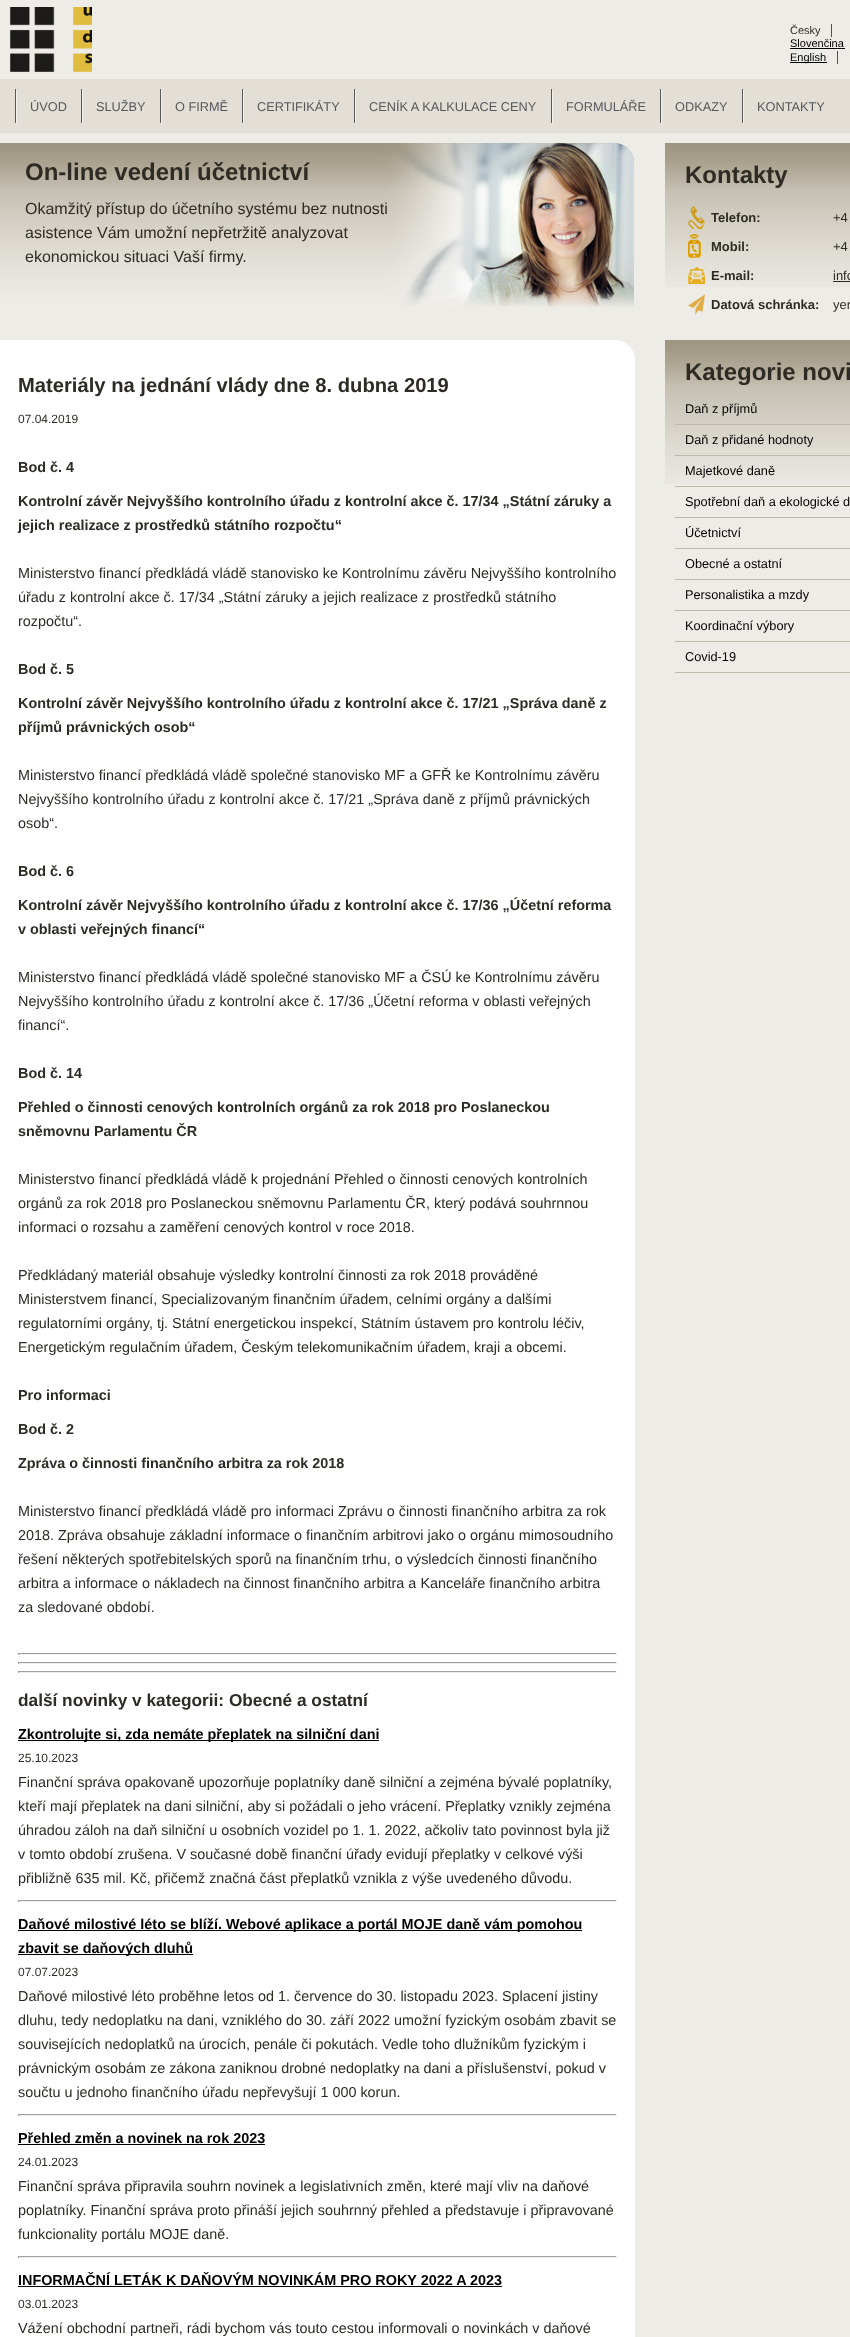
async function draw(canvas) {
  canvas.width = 850;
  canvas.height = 2337;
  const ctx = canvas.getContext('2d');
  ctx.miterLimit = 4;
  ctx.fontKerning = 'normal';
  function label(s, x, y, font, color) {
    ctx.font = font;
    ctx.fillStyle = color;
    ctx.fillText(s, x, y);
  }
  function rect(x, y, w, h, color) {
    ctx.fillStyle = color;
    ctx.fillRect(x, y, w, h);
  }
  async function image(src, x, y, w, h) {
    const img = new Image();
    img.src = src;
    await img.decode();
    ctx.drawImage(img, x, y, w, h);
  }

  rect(0, 0, 850, 2337, '#eeece7');
  await image('assets/img1.png', 10, 7, 82, 65);
  rect(831, 24, 1, 13, '#57503d');
  label('Česky', 790, 34, '11px Liberation Sans', '#2e2b24');
  label('Slovenčina', 790, 47, '11px Liberation Sans', '#000');
  rect(790, 48, 55, 1, '#000');
  rect(837, 51, 1, 13, '#57503d');
  rect(790, 62, 37, 1, '#000');
  label('English', 790, 61, '11px Liberation Sans', '#000');
  rect(0, 79, 850, 54, '#e3dfd7');
  await image('assets/img2.png', 15, 89, 2, 35);
  label('ÚVOD', 30, 111, '12.75px Liberation Sans', '#555759');
  await image('assets/img2.png', 81, 89, 2, 35);
  label('SLUŽBY', 96, 111, '12.75px Liberation Sans', '#555759');
  await image('assets/img2.png', 160, 89, 2, 35);
  label('O FIRMĚ', 175, 111, '12.75px Liberation Sans', '#555759');
  await image('assets/img2.png', 242, 89, 2, 35);
  label('CERTIFIKÁTY', 257, 111, '12.75px Liberation Sans', '#555759');
  await image('assets/img2.png', 354, 89, 2, 35);
  label('CENÍK A KALKULACE CENY', 369, 111, '12.75px Liberation Sans', '#555759');
  await image('assets/img2.png', 551, 89, 2, 35);
  label('FORMULÁŘE', 566, 111, '12.75px Liberation Sans', '#555759');
  await image('assets/img2.png', 660, 89, 2, 35);
  label('ODKAZY', 675, 111, '12.75px Liberation Sans', '#555759');
  await image('assets/img2.png', 742, 89, 2, 35);
  label('KONTAKTY', 757, 111, '12.75px Liberation Sans', '#555759');
  await image('assets/img3.png', 0, 143, 635, 164);
  label('On-line vedení účetnictví', 25, 180, 'bold 24px Liberation Sans', '#2e2b24');
  label('Okamžitý přístup do účetního systému bez nutnosti', 25, 214, '16px Liberation Sans', '#2e2b24');
  label('asistence Vám umožní nepřetržitě analyzovat', 25, 238, '16px Liberation Sans', '#2e2b24');
  label('ekonomickou situaci Vaší firmy.', 25, 262, '16px Liberation Sans', '#2e2b24');
  await image('assets/img4.png', 665, 143, 185, 144);
  label('Kontakty', 685, 183, 'bold 24px Liberation Sans', '#2e2b24');
  await image('assets/img5.png', 688, 206, 17, 23);
  label('Telefon:', 711, 222, 'bold 13px Liberation Sans', '#2e2b24');
  label('+4', 833, 222, '13px Liberation Sans', '#2e2b24');
  await image('assets/img6.png', 688, 234, 13, 24);
  label('Mobil:', 711, 251, 'bold 13px Liberation Sans', '#2e2b24');
  label('+4', 833, 251, '13px Liberation Sans', '#2e2b24');
  await image('assets/img7.png', 688, 267, 17, 17);
  label('E-mail:', 711, 280, 'bold 13px Liberation Sans', '#2e2b24');
  label('info', 833, 280, '13px Liberation Sans', '#2e2b24');
  rect(833, 281, 17, 1, '#2e2b24');
  await image('assets/img8.png', 688, 294, 17, 21);
  label('Datová schránka:', 711, 309, 'bold 13px Liberation Sans', '#2e2b24');
  label('yen', 833, 309, '13px Liberation Sans', '#2e2b24');
  rect(0, 340, 635, 1997, '#fff');
  await image('assets/img9.png', 617, 340, 18, 17);
  label('Materiály na jednání vlády dne 8. dubna 2019', 18, 392, 'bold 20.2px Liberation Sans', '#2e2b24');
  label('07.04.2019', 18, 423, '12px Liberation Sans', '#2e2b24');
  label('Bod č. 4', 18, 472, 'bold 14.4px Liberation Sans', '#2e2b24');
  label('Kontrolní závěr Nejvyššího kontrolního úřadu z kontrolní akce č. 17/34 „Státní záruky a', 18, 506, 'bold 14.4px Liberation Sans', '#2e2b24');
  label('jejich realizace z prostředků státního rozpočtu“', 18, 530, 'bold 14.4px Liberation Sans', '#2e2b24');
  label('Ministerstvo financí předkládá vládě stanovisko ke Kontrolnímu závěru Nejvyššího kontrolního', 18, 578, '14.4px Liberation Sans', '#2e2b24');
  label('úřadu z kontrolní akce č. 17/34 „Státní záruky a jejich realizace z prostředků státního', 18, 602, '14.4px Liberation Sans', '#2e2b24');
  label('rozpočtu“.', 18, 626, '14.4px Liberation Sans', '#2e2b24');
  label('Bod č. 5', 18, 674, 'bold 14.4px Liberation Sans', '#2e2b24');
  label('Kontrolní závěr Nejvyššího kontrolního úřadu z kontrolní akce č. 17/21 „Správa daně z', 18, 708, 'bold 14.4px Liberation Sans', '#2e2b24');
  label('příjmů právnických osob“', 18, 732, 'bold 14.4px Liberation Sans', '#2e2b24');
  label('Ministerstvo financí předkládá vládě společné stanovisko MF a GFŘ ke Kontrolnímu závěru', 18, 780, '14.4px Liberation Sans', '#2e2b24');
  label('Nejvyššího kontrolního úřadu z kontrolní akce č. 17/21 „Správa daně z příjmů právnických', 18, 804, '14.4px Liberation Sans', '#2e2b24');
  label('osob“.', 18, 828, '14.4px Liberation Sans', '#2e2b24');
  label('Bod č. 6', 18, 876, 'bold 14.4px Liberation Sans', '#2e2b24');
  label('Kontrolní závěr Nejvyššího kontrolního úřadu z kontrolní akce č. 17/36 „Účetní reforma', 18, 910, 'bold 14.4px Liberation Sans', '#2e2b24');
  label('v oblasti veřejných financí“', 18, 934, 'bold 14.4px Liberation Sans', '#2e2b24');
  label('Ministerstvo financí předkládá vládě společné stanovisko MF a ČSÚ ke Kontrolnímu závěru', 18, 982, '14.4px Liberation Sans', '#2e2b24');
  label('Nejvyššího kontrolního úřadu z kontrolní akce č. 17/36 „Účetní reforma v oblasti veřejných', 18, 1006, '14.4px Liberation Sans', '#2e2b24');
  label('financí“.', 18, 1030, '14.4px Liberation Sans', '#2e2b24');
  label('Bod č. 14', 18, 1078, 'bold 14.4px Liberation Sans', '#2e2b24');
  label('Přehled o činnosti cenových kontrolních orgánů za rok 2018 pro Poslaneckou', 18, 1112, 'bold 14.4px Liberation Sans', '#2e2b24');
  label('sněmovnu Parlamentu ČR', 18, 1136, 'bold 14.4px Liberation Sans', '#2e2b24');
  label('Ministerstvo financí předkládá vládě k projednání Přehled o činnosti cenových kontrolních', 18, 1184, '14.4px Liberation Sans', '#2e2b24');
  label('orgánů za rok 2018 pro Poslaneckou sněmovnu Parlamentu ČR, který podává souhrnnou', 18, 1208, '14.4px Liberation Sans', '#2e2b24');
  label('informaci o rozsahu a zaměření cenových kontrol v roce 2018.', 18, 1232, '14.4px Liberation Sans', '#2e2b24');
  label('Předkládaný materiál obsahuje výsledky kontrolní činnosti za rok 2018 prováděné', 18, 1280, '14.4px Liberation Sans', '#2e2b24');
  label('Ministerstvem financí, Specializovaným finančním úřadem, celními orgány a dalšími', 18, 1304, '14.4px Liberation Sans', '#2e2b24');
  label('regulatorními orgány, tj. Státní energetickou inspekcí, Státním ústavem pro kontrolu léčiv,', 18, 1328, '14.4px Liberation Sans', '#2e2b24');
  label('Energetickým regulačním úřadem, Českým telekomunikačním úřadem, kraji a obcemi.', 18, 1352, '14.4px Liberation Sans', '#2e2b24');
  label('Pro informaci', 18, 1400, 'bold 14.4px Liberation Sans', '#2e2b24');
  label('Bod č. 2', 18, 1434, 'bold 14.4px Liberation Sans', '#2e2b24');
  label('Zpráva o činnosti finančního arbitra za rok 2018', 18, 1468, 'bold 14.4px Liberation Sans', '#2e2b24');
  label('Ministerstvo financí předkládá vládě pro informaci Zprávu o činnosti finančního arbitra za rok', 18, 1516, '14.4px Liberation Sans', '#2e2b24');
  label('2018. Zpráva obsahuje základní informace o finančním arbitrovi jako o orgánu mimosoudního', 18, 1540, '14.4px Liberation Sans', '#2e2b24');
  label('řešení některých spotřebitelských sporů na finančním trhu, o výsledcích činnosti finančního', 18, 1564, '14.4px Liberation Sans', '#2e2b24');
  label('arbitra a informace o nákladech na činnost finančního arbitra a Kanceláře finančního arbitra', 18, 1588, '14.4px Liberation Sans', '#2e2b24');
  label('za sledované období.', 18, 1612, '14.4px Liberation Sans', '#2e2b24');
  rect(18, 1653, 599, 1, '#9f9f9f');
  rect(616, 1653, 1, 2, '#eee');
  rect(18, 1654, 599, 1, '#eee');
  rect(18, 1653, 1, 2, '#9f9f9f');
  rect(18, 1662, 599, 1, '#9f9f9f');
  rect(616, 1662, 1, 2, '#eee');
  rect(18, 1663, 599, 1, '#eee');
  rect(18, 1662, 1, 2, '#9f9f9f');
  rect(18, 1671, 599, 1, '#9f9f9f');
  rect(616, 1671, 1, 2, '#eee');
  rect(18, 1672, 599, 1, '#eee');
  rect(18, 1671, 1, 2, '#9f9f9f');
  label('další novinky v kategorii: Obecné a ostatní', 18, 1706, 'bold 17.25px Liberation Sans', '#2e2b24');
  rect(18, 1740, 361, 1, '#000');
  label('Zkontrolujte si, zda nemáte přeplatek na silniční dani', 18, 1739, 'bold 14.4px Liberation Sans', '#000');
  label('25.10.2023', 18, 1762, '12px Liberation Sans', '#2e2b24');
  label('Finanční správa opakovaně upozorňuje poplatníky daně silniční a zejména bývalé poplatníky,', 18, 1787, '14.4px Liberation Sans', '#2e2b24');
  label('kteří mají přeplatek na dani silniční, aby si požádali o jeho vrácení. Přeplatky vznikly zejména', 18, 1811, '14.4px Liberation Sans', '#2e2b24');
  label('úhradou záloh na daň silniční u osobních vozidel po 1. 1. 2022, ačkoliv tato povinnost byla již', 18, 1835, '14.4px Liberation Sans', '#2e2b24');
  label('v tomto období zrušena. V současné době finanční úřady evidují přeplatky v celkové výši', 18, 1859, '14.4px Liberation Sans', '#2e2b24');
  label('přibližně 635 mil. Kč, přičemž značná část přeplatků vznikla z výše uvedeného důvodu.', 18, 1883, '14.4px Liberation Sans', '#2e2b24');
  rect(18, 1900, 599, 1, '#9f9f9f');
  rect(616, 1900, 1, 2, '#eee');
  rect(18, 1901, 599, 1, '#eee');
  rect(18, 1900, 1, 2, '#9f9f9f');
  rect(18, 1930, 564, 1, '#000');
  label('Daňové milostivé léto se blíží. Webové aplikace a portál MOJE daně vám pomohou', 18, 1929, 'bold 14.4px Liberation Sans', '#000');
  rect(18, 1954, 175, 1, '#000');
  label('zbavit se daňových dluhů', 18, 1953, 'bold 14.4px Liberation Sans', '#000');
  label('07.07.2023', 18, 1976, '12px Liberation Sans', '#2e2b24');
  label('Daňové milostivé léto proběhne letos od 1. července do 30. listopadu 2023. Splacení jistiny', 18, 2001, '14.4px Liberation Sans', '#2e2b24');
  label('dluhu, tedy nedoplatku na dani, vzniklého do 30. září 2022 umožní fyzickým osobám zbavit se', 18, 2025, '14.4px Liberation Sans', '#2e2b24');
  label('souvisejících nedoplatků na úrocích, penále či pokutách. Vedle toho dlužníkům fyzickým i', 18, 2049, '14.4px Liberation Sans', '#2e2b24');
  label('právnickým osobám ze zákona zaniknou drobné nedoplatky na dani a příslušenství, pokud v', 18, 2073, '14.4px Liberation Sans', '#2e2b24');
  label('součtu u jednoho finančního úřadu nepřevyšují 1 000 korun.', 18, 2097, '14.4px Liberation Sans', '#2e2b24');
  rect(18, 2114, 599, 1, '#9f9f9f');
  rect(616, 2114, 1, 2, '#eee');
  rect(18, 2115, 599, 1, '#eee');
  rect(18, 2114, 1, 2, '#9f9f9f');
  label('Přehled změn a novinek na rok 2023', 18, 2143, 'bold 14.4px Liberation Sans', '#000');
  rect(18, 2144, 247, 1, '#000');
  label('24.01.2023', 18, 2166, '12px Liberation Sans', '#2e2b24');
  label('Finanční správa připravila souhrn novinek a legislativních změn, které mají vliv na daňové', 18, 2191, '14.4px Liberation Sans', '#2e2b24');
  label('poplatníky. Finanční správa proto přináší jejich souhrnný přehled a představuje i připravované', 18, 2215, '14.4px Liberation Sans', '#2e2b24');
  label('funkcionality portálu MOJE daně.', 18, 2239, '14.4px Liberation Sans', '#2e2b24');
  rect(18, 2256, 599, 1, '#9f9f9f');
  rect(616, 2256, 1, 2, '#eee');
  rect(18, 2257, 599, 1, '#eee');
  rect(18, 2256, 1, 2, '#9f9f9f');
  label('INFORMAČNÍ LETÁK K DAŇOVÝM NOVINKÁM PRO ROKY 2022 A 2023', 18, 2285, 'bold 14.4px Liberation Sans', '#000');
  rect(18, 2286, 484, 1, '#000');
  label('03.01.2023', 18, 2308, '12px Liberation Sans', '#2e2b24');
  label('Vážení obchodní partneři, rádi bychom vás touto cestou informovali o novinkách v daňové', 18, 2333, '14.4px Liberation Sans', '#2e2b24');
  await image('assets/img4.png', 665, 340, 185, 144);
  label('Kategorie novi', 685, 380, 'bold 24px Liberation Sans', '#2e2b24');
  rect(675, 424, 175, 1, '#c0b9a9');
  label('Daň z příjmů', 685, 413, '12.75px Liberation Sans', '#000');
  rect(675, 455, 175, 1, '#c0b9a9');
  label('Daň z přidané hodnoty', 685, 444, '12.75px Liberation Sans', '#000');
  rect(675, 486, 175, 1, '#c0b9a9');
  label('Majetkové daně', 685, 475, '12.75px Liberation Sans', '#000');
  rect(675, 517, 175, 1, '#c0b9a9');
  label('Spotřební daň a ekologické d', 685, 506, '12.75px Liberation Sans', '#000');
  rect(675, 548, 175, 1, '#c0b9a9');
  label('Účetnictví', 685, 537, '12.75px Liberation Sans', '#000');
  rect(675, 579, 175, 1, '#c0b9a9');
  label('Obecné a ostatní', 685, 568, '12.75px Liberation Sans', '#000');
  rect(675, 610, 175, 1, '#c0b9a9');
  label('Personalistika a mzdy', 685, 599, '12.75px Liberation Sans', '#000');
  rect(675, 641, 175, 1, '#c0b9a9');
  label('Koordinační výbory', 685, 630, '12.75px Liberation Sans', '#000');
  rect(675, 672, 175, 1, '#c0b9a9');
  label('Covid-19', 685, 661, '12.75px Liberation Sans', '#000');
}

draw(document.querySelector('canvas'));
